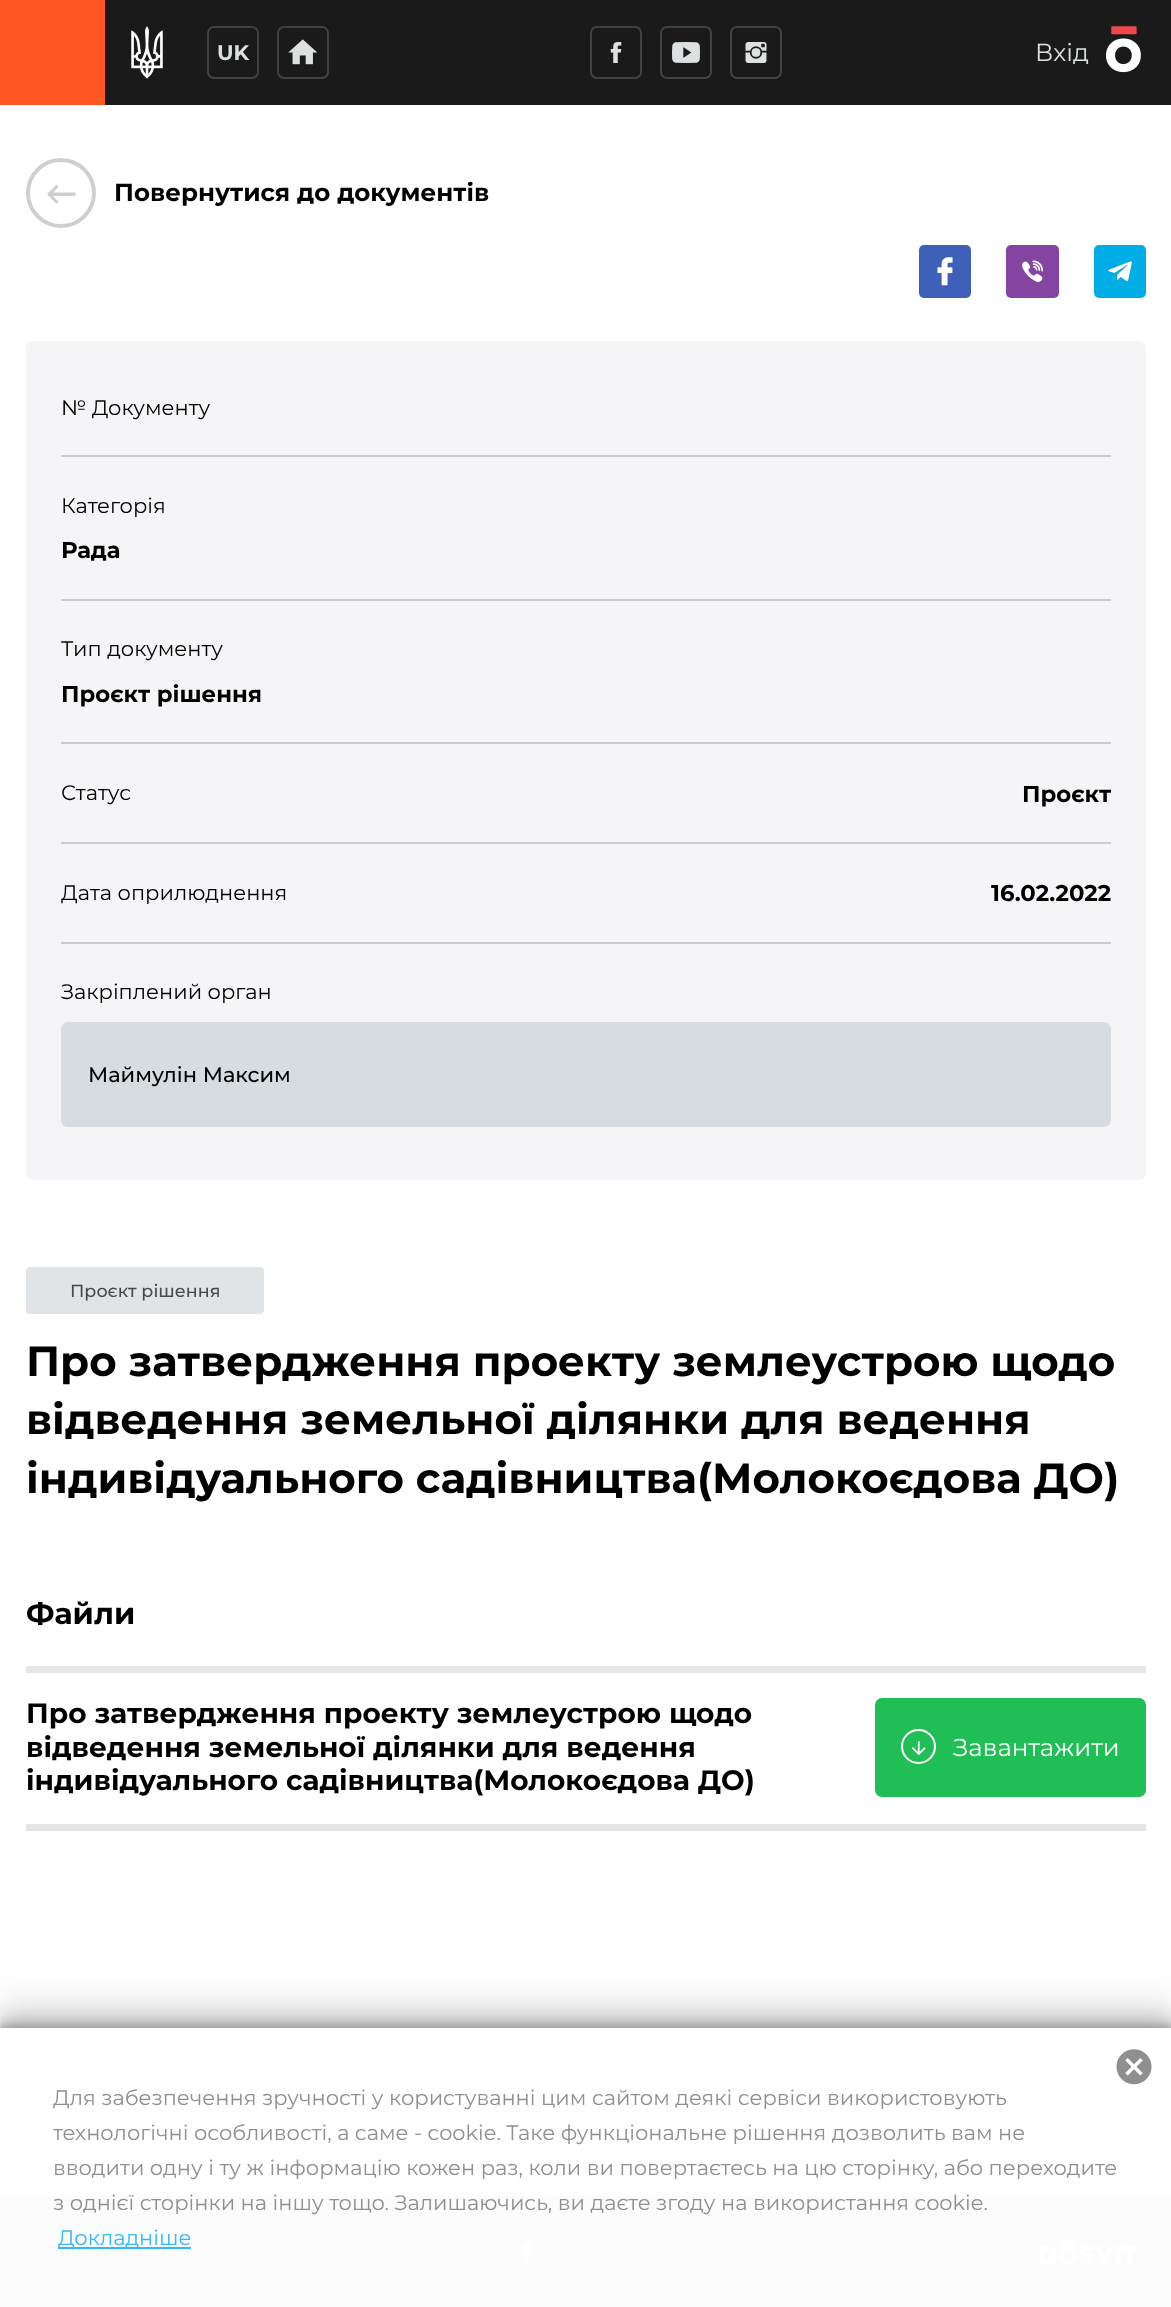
async function draw(canvas) {
  canvas.width = 1171;
  canvas.height = 2307;
  const ctx = canvas.getContext('2d');
  ctx.miterLimit = 4;
  ctx.fontKerning = 'normal';
  function label(s, x, y, font, color) {
    ctx.font = font;
    ctx.fillStyle = color;
    ctx.fillText(s, x, y);
  }
  function rect(x, y, w, h, color) {
    ctx.fillStyle = color;
    ctx.fillRect(x, y, w, h);
  }
  function roundedRect(x, y, w, h, r, color) {
    ctx.fillStyle = color;
    ctx.beginPath();
    ctx.roundRect(x, y, w, h, r);
    ctx.fill();
  }
  async function image(src, x, y, w, h) {
    const img = new Image();
    img.src = src;
    await img.decode();
    ctx.drawImage(img, x, y, w, h);
  }
  let path;

  rect(0, 0, 1171, 2307, '#fff');
  rect(105, 0, 1066, 105, '#1a1a1a');
  rect(0, 0, 105, 105, '#ff5722');
  await image('assets/img1.png', 131, 26, 32, 53);
  ctx.beginPath();
  ctx.roundRect(208, 27, 50, 51, 6);
  ctx.strokeStyle = '#424242';
  ctx.lineWidth = 2;
  ctx.stroke();
  label('UK', 217, 60, 'bold 21px Montserrat', '#dce0e0');
  ctx.beginPath();
  ctx.roundRect(278, 27, 50, 51, 6);
  ctx.stroke();
  await image('assets/img2.png', 288, 39, 30, 26);
  ctx.beginPath();
  ctx.roundRect(591, 27, 50, 51, 6);
  ctx.stroke();
  await image('assets/img3.png', 610, 42, 12, 21);
  ctx.beginPath();
  ctx.roundRect(661, 27, 50, 51, 6);
  ctx.stroke();
  await image('assets/img4.png', 672, 42, 28, 21);
  ctx.beginPath();
  ctx.roundRect(731, 27, 50, 51, 6);
  ctx.stroke();
  await image('assets/img5.png', 745, 42, 22, 21);
  label('Вхід', 1035, 61, '24.5px Montserrat', '#dce0e0');
  await image('assets/img6.png', 1106, 26, 35, 47);
  ctx.beginPath();
  ctx.arc(61, 193, 33, 0, 2 * Math.PI);
  ctx.strokeStyle = '#ced0ce';
  ctx.lineWidth = 4;
  ctx.stroke();
  ctx.fillStyle = '#ced0ce';
  path = new Path2D('M75.5 192.5V196H53L58.5 201.5L56.5 204L47 194L56.5 184.5L58.5 187L53 192.5Z');
  ctx.fill(path);
  label('Повернутися до документів', 114, 201, 'bold 24.5px Montserrat', '#000');
  roundedRect(919, 245, 52, 53, 5, '#3e60b8');
  await image('assets/img7.png', 937, 257, 16, 29);
  roundedRect(1006, 245, 53, 53, 5, '#8444a1');
  await image('assets/img8.png', 1022, 260, 21, 22);
  roundedRect(1094, 245, 52, 53, 5, '#00ade7');
  await image('assets/img9.png', 1108, 261, 24, 21);
  roundedRect(26, 341, 1120, 839, 7, '#f5f5f7');
  rect(61, 455, 1050, 2, '#ccc');
  label('№ Документу', 61, 415, '21px Montserrat', '#000');
  rect(61, 599, 1050, 2, '#ccc');
  label('Категорія', 61, 513, '21px Montserrat', '#000');
  label('Рада', 61, 558, 'bold 22.75px Montserrat', '#000');
  rect(61, 742, 1050, 2, '#ccc');
  label('Тип документу', 61, 656, '21px Montserrat', '#000');
  label('Проєкт рішення', 61, 702, 'bold 22.75px Montserrat', '#000');
  rect(61, 842, 1050, 2, '#ccc');
  label('Статус', 61, 800, '21px Montserrat', '#000');
  label('Проєкт', 1022, 802, 'bold 22.75px Montserrat', '#000');
  rect(61, 942, 1050, 2, '#ccc');
  label('Дата оприлюднення', 61, 900, '21px Montserrat', '#000');
  label('16.02.2022', 991, 901, 'bold 22.75px Montserrat', '#000');
  label('Закріплений орган', 61, 999, '21px Montserrat', '#000');
  roundedRect(61, 1022, 1050, 105, 7, '#d7dce0');
  label('Маймулін Максим', 88, 1082, '500 21px Montserrat', '#000');
  ctx.fillStyle = '#e1e4e6';
  ctx.beginPath();
  ctx.roundRect(27, 1268, 236, 45, 3);
  ctx.fill();
  ctx.strokeStyle = '#e1e4e6';
  ctx.lineWidth = 2;
  ctx.stroke();
  label('Проєкт рішення', 70, 1297, '500 17.5px Montserrat', '#484848');
  label('Про затвердження проекту землеустрою щодо', 26, 1376, 'bold 42px Montserrat', '#000');
  label('відведення земельної ділянки для ведення', 26, 1434, 'bold 42px Montserrat', '#000');
  label('індивідуального садівництва(Молокоєдова ДО)', 26, 1493, 'bold 42px Montserrat', '#000');
  rect(26, 1666, 1120, 7, '#e6e6e6');
  label('Файли', 26, 1624, 'bold 30px Montserrat', '#000');
  rect(26, 1824, 1120, 7, '#e6e6e6');
  label('Про затвердження проекту землеустрою щодо', 26, 1723, 'bold 28px Montserrat', '#000');
  label('відведення земельної ділянки для ведення', 26, 1757, 'bold 28px Montserrat', '#000');
  label('індивідуального садівництва(Молокоєдова ДО)', 26, 1790, 'bold 28px Montserrat', '#000');
  roundedRect(875, 1698, 271, 99, 7, '#20bf55');
  ctx.beginPath();
  ctx.arc(918.5, 1746.5, 16.5, 0, 2 * Math.PI);
  ctx.strokeStyle = '#fff';
  ctx.stroke();
  await image('assets/img10.png', 911, 1741, 15, 15);
  label('Завантажити', 953, 1756, '24.5px Montserrat', '#fff');
  rect(0, 2196, 1171, 111, '#000');
  ctx.beginPath();
  ctx.roundRect(502, 2227, 50, 51, 6);
  ctx.strokeStyle = '#424242';
  ctx.stroke();
  await image('assets/img12.png', 521, 2241, 11, 22);
  await image('assets/img13.png', 1040, 2240, 98, 25);
  ctx.save();
  path = new Path2D('M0 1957H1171V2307H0ZM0 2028H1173V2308H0Z');
  ctx.clip(path, 'evenodd');
  ctx.fillStyle = '#0000001a';
  ctx.filter = 'blur(14px)';
  ctx.beginPath();
  ctx.rect(0, 2000, 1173, 280);
  ctx.fill();
  ctx.filter = 'none';
  ctx.restore();
  ctx.save();
  path = new Path2D('M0 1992H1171V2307H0ZM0 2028H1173V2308H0Z');
  ctx.clip(path, 'evenodd');
  ctx.fillStyle = '#0000001a';
  ctx.filter = 'blur(7px)';
  ctx.beginPath();
  ctx.rect(0, 2014, 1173, 280);
  ctx.fill();
  ctx.filter = 'none';
  ctx.restore();
  ctx.save();
  path = new Path2D('M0 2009H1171V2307H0ZM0 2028H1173V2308H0Z');
  ctx.clip(path, 'evenodd');
  ctx.fillStyle = '#0000001a';
  ctx.filter = 'blur(3.5px)';
  ctx.beginPath();
  ctx.rect(0, 2021, 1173, 280);
  ctx.fill();
  ctx.filter = 'none';
  ctx.restore();
  ctx.save();
  path = new Path2D('M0 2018H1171V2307H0ZM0 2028H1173V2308H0Z');
  ctx.clip(path, 'evenodd');
  ctx.fillStyle = '#0000001a';
  ctx.filter = 'blur(2px)';
  ctx.beginPath();
  ctx.rect(0, 2025, 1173, 280);
  ctx.fill();
  ctx.filter = 'none';
  ctx.restore();
  rect(0, 2028, 1171, 279, '#fffffffc');
  await image('assets/img11.png', 1116, 2049, 36, 36);
  label('Для забезпечення зручності у користуванні цим сайтом деякі сервіси використовують', 53, 2105, '21px Montserrat', '#8f8f8f');
  label('технологічні особливості, а саме - cookie. Таке функціональне рішення дозволить вам не', 53, 2140, '21px Montserrat', '#8f8f8f');
  label('вводити одну і ту ж інформацію кожен раз, коли ви повертаєтесь на цю сторінку, або переходите', 53, 2175, '21px Montserrat', '#8f8f8f');
  label('з однієї сторінки на іншу тощо. Залишаючись, ви даєте згоду на використання cookie.', 53, 2210, '21px Montserrat', '#8f8f8f');
  rect(58, 2247, 133, 2, '#33b8ff');
  label('Докладніше', 58, 2245, '21px Montserrat', '#33b8ff');
}

draw(document.querySelector('canvas'));
